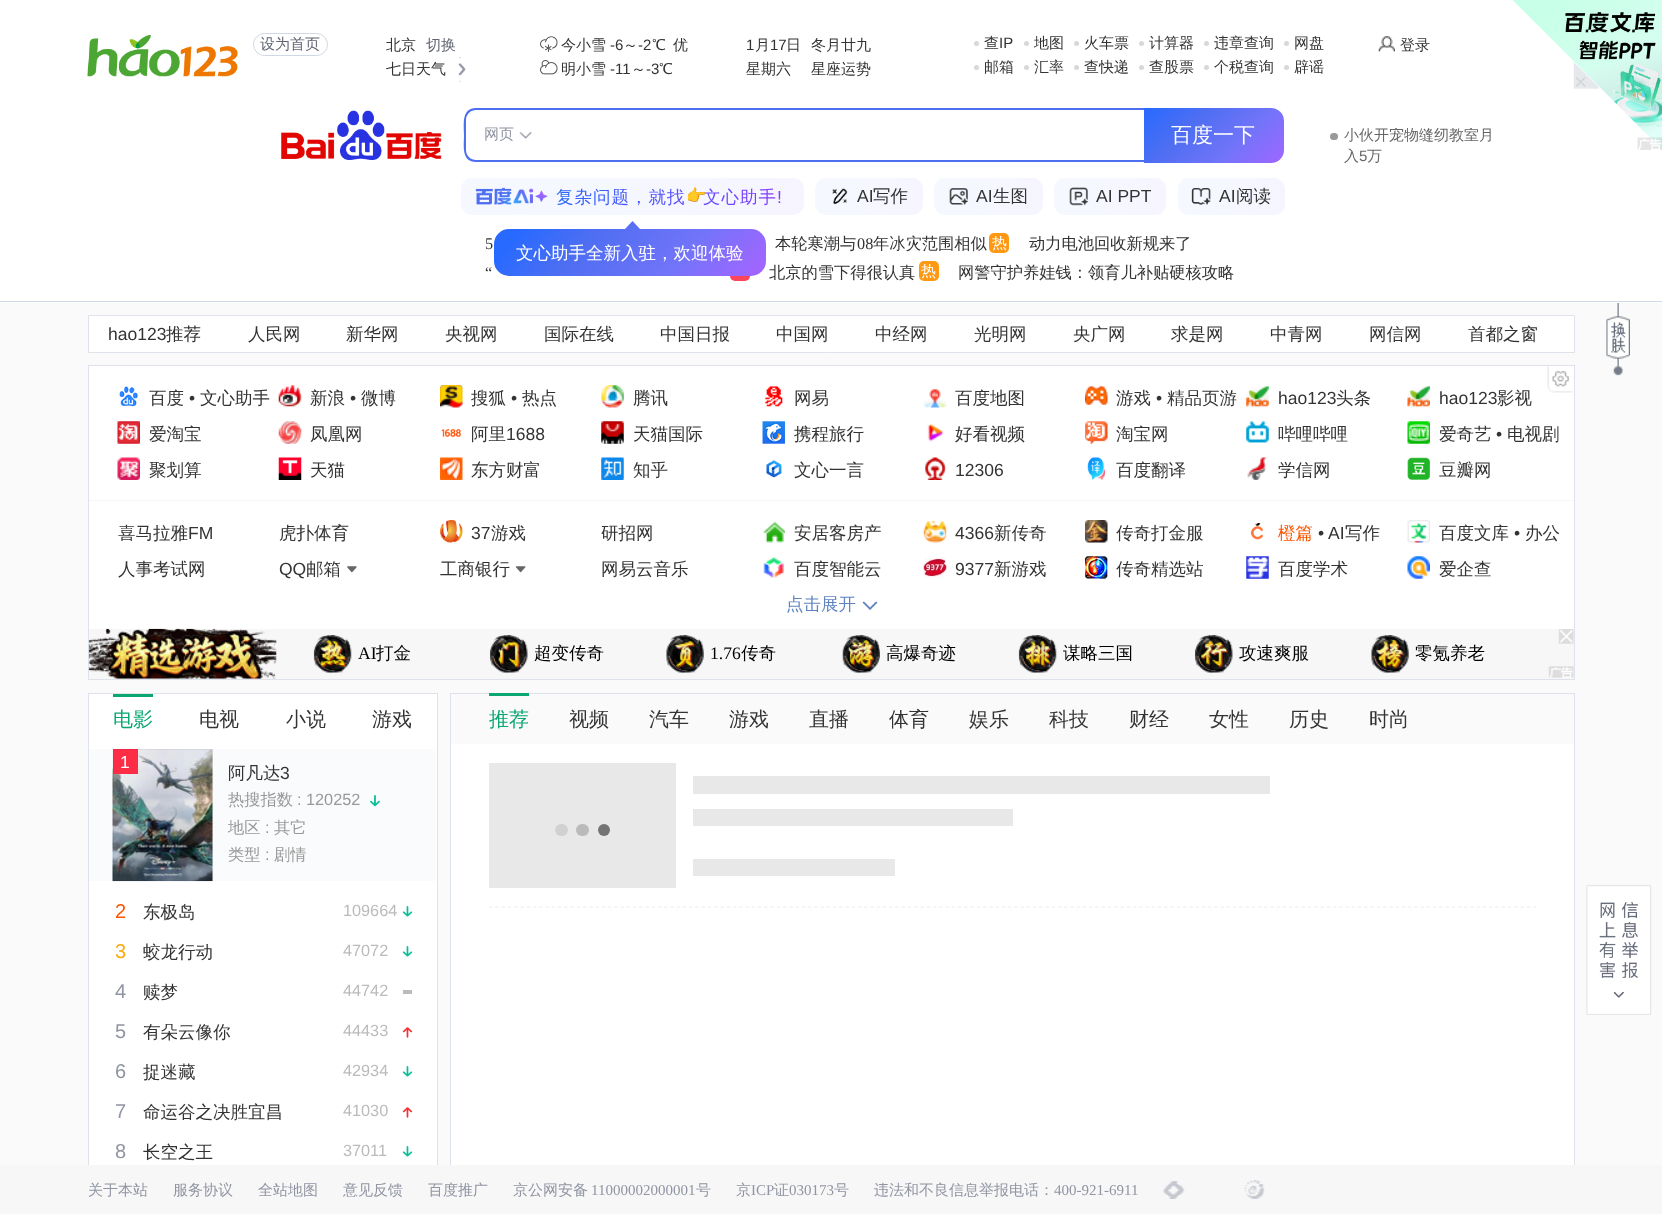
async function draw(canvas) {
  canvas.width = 1662;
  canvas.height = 1214;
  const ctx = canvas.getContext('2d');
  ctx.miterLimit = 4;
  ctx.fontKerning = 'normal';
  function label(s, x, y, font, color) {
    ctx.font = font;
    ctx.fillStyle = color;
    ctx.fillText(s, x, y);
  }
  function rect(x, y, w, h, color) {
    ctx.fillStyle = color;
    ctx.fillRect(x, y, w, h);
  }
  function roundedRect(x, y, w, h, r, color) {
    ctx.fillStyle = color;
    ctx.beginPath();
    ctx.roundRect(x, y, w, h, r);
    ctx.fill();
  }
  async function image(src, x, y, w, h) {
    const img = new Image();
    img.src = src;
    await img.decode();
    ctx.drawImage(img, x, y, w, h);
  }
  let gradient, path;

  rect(0, 0, 1662, 1214, '#fafafa');
  rect(0, 0, 1626, 108, '#fff');
  await image('assets/img1.png', 87, 35, 151, 42);
  ctx.beginPath();
  ctx.roundRect(253.5, 33.5, 74, 22, 11);
  ctx.strokeStyle = '#d1d8e5';
  ctx.stroke();
  label('设为首页', 260, 49, '500 15px WenQuanYi Zen Hei', '#626675');
  label('北京', 386, 50, '500 15px WenQuanYi Zen Hei', '#333');
  label('切换', 426, 50, '500 15px WenQuanYi Zen Hei', '#626675');
  label('七日天气', 386, 74, '500 15px WenQuanYi Zen Hei', '#333');
  await image('assets/img2.png', 458, 57, 8, 25);
  await image('assets/img3.png', 540, 36, 18, 16);
  label('今小雪', 561, 50, '500 15px WenQuanYi Zen Hei', '#333');
  label('-6', 610, 50, '15px Liberation Sans', '#333');
  label('～', 623, 50, '500 15px WenQuanYi Zen Hei', '#333');
  label('-2', 638, 50, '15px Liberation Sans', '#333');
  label('℃', 652, 50, '500 15px WenQuanYi Zen Hei', '#333');
  label('优', 673, 50, '500 15px WenQuanYi Zen Hei', '#333');
  await image('assets/img4.png', 540, 60, 18, 15);
  label('明小雪', 561, 74, '500 15px WenQuanYi Zen Hei', '#333');
  label('-11', 610, 74, '15px Liberation Sans', '#333');
  label('～', 631, 74, '500 15px WenQuanYi Zen Hei', '#333');
  label('-3', 646, 74, '15px Liberation Sans', '#333');
  label('℃', 659, 74, '500 15px WenQuanYi Zen Hei', '#333');
  label('1', 746, 50, '15px Liberation Sans', '#333');
  label('月', 755, 50, '500 15px WenQuanYi Zen Hei', '#333');
  label('17', 770, 50, '15px Liberation Sans', '#333');
  label('日', 786, 50, '500 15px WenQuanYi Zen Hei', '#333');
  label('星期六', 746, 74, '500 15px WenQuanYi Zen Hei', '#333');
  label('冬月廿九', 811, 50, '500 15px WenQuanYi Zen Hei', '#333');
  label('星座运势', 811, 74, '500 15px WenQuanYi Zen Hei', '#333');
  ctx.fillStyle = '#d8d8d8';
  ctx.beginPath();
  ctx.arc(976.5, 43.5, 2.5, 0, 2 * Math.PI);
  ctx.fill();
  label('查', 984, 48, '500 15px WenQuanYi Zen Hei', '#333');
  label('IP', 999, 48, '15px Liberation Sans', '#333');
  ctx.fillStyle = '#d8d8d8';
  ctx.beginPath();
  ctx.arc(976.5, 67.5, 2.5, 0, 2 * Math.PI);
  ctx.fill();
  label('邮箱', 984, 72, '500 15px WenQuanYi Zen Hei', '#333');
  ctx.fillStyle = '#d8d8d8';
  ctx.beginPath();
  ctx.arc(1026.5, 43.5, 2.5, 0, 2 * Math.PI);
  ctx.fill();
  label('地图', 1034, 48, '500 15px WenQuanYi Zen Hei', '#333');
  ctx.fillStyle = '#d8d8d8';
  ctx.beginPath();
  ctx.arc(1026.5, 67.5, 2.5, 0, 2 * Math.PI);
  ctx.fill();
  label('汇率', 1034, 72, '500 15px WenQuanYi Zen Hei', '#333');
  ctx.fillStyle = '#d8d8d8';
  ctx.beginPath();
  ctx.arc(1076.5, 43.5, 2.5, 0, 2 * Math.PI);
  ctx.fill();
  label('火车票', 1084, 48, '500 15px WenQuanYi Zen Hei', '#333');
  ctx.fillStyle = '#d8d8d8';
  ctx.beginPath();
  ctx.arc(1076.5, 67.5, 2.5, 0, 2 * Math.PI);
  ctx.fill();
  label('查快递', 1084, 72, '500 15px WenQuanYi Zen Hei', '#333');
  ctx.fillStyle = '#d8d8d8';
  ctx.beginPath();
  ctx.arc(1141.5, 43.5, 2.5, 0, 2 * Math.PI);
  ctx.fill();
  label('计算器', 1149, 48, '500 15px WenQuanYi Zen Hei', '#333');
  ctx.fillStyle = '#d8d8d8';
  ctx.beginPath();
  ctx.arc(1141.5, 67.5, 2.5, 0, 2 * Math.PI);
  ctx.fill();
  label('查股票', 1149, 72, '500 15px WenQuanYi Zen Hei', '#333');
  ctx.fillStyle = '#d8d8d8';
  ctx.beginPath();
  ctx.arc(1206.5, 43.5, 2.5, 0, 2 * Math.PI);
  ctx.fill();
  label('违章查询', 1214, 48, '500 15px WenQuanYi Zen Hei', '#333');
  ctx.fillStyle = '#d8d8d8';
  ctx.beginPath();
  ctx.arc(1206.5, 67.5, 2.5, 0, 2 * Math.PI);
  ctx.fill();
  label('个税查询', 1214, 72, '500 15px WenQuanYi Zen Hei', '#333');
  ctx.fillStyle = '#d8d8d8';
  ctx.beginPath();
  ctx.arc(1286.5, 43.5, 2.5, 0, 2 * Math.PI);
  ctx.fill();
  label('网盘', 1294, 48, '500 15px WenQuanYi Zen Hei', '#333');
  ctx.fillStyle = '#d8d8d8';
  ctx.beginPath();
  ctx.arc(1286.5, 67.5, 2.5, 0, 2 * Math.PI);
  ctx.fill();
  label('辟谣', 1294, 72, '500 15px WenQuanYi Zen Hei', '#333');
  await image('assets/img5.png', 1378, 36, 17, 16);
  label('登录', 1400, 50, '500 15px WenQuanYi Zen Hei', '#333');
  rect(0, 108, 1662, 195, '#fff');
  await image('assets/img6.png', 1512, 0, 150, 149);
  await image('assets/img7.png', 1637, 137, 25, 13);
  await image('assets/img8.png', 1573, 62, 26, 27);
  rect(0, 301, 1662, 1, '#d1d8e5');
  await image('assets/img9.png', 281, 110, 161, 50);
  ctx.fillStyle = '#4e6ef2';
  path = new Path2D('M476 108H1144V162H476C461 162 464 145 464 135C464 125 461 108 476 108ZM476 110H1144V160H476C471 160 466 156 466 150V120C466 114 471 110 476 110Z');
  ctx.fill(path, 'evenodd');
  label('网页', 484, 139, '500 15px WenQuanYi Zen Hei', '#9195a3');
  await image('assets/img10.png', 519, 131, 13, 8);
  gradient = ctx.createLinearGradient(1166, 86, 1261, 184);
  gradient.addColorStop(0, '#286aff');
  gradient.addColorStop(0.33, '#4e6ef2');
  gradient.addColorStop(0.67, '#7274f9');
  gradient.addColorStop(1, '#9f66ff');
  ctx.fillStyle = gradient;
  ctx.beginPath();
  ctx.roundRect(1144, 108, 140, 55, [0, 13, 13, 0]);
  ctx.fill();
  label('百度一下', 1171, 142, '500 21px WenQuanYi Zen Hei', '#fff');
  roundedRect(1330, 133, 8, 7, 3.5, '#999');
  ctx.save();
  ctx.beginPath();
  ctx.rect(1344, 128, 150, 57);
  ctx.clip();
  label('小伙开宠物缝纫教室月', 1344, 140, '500 15px WenQuanYi Zen Hei', '#666');
  ctx.restore();
  label('入', 1344, 161, '500 15px WenQuanYi Zen Hei', '#666');
  label('5', 1359, 161, '15px Liberation Sans', '#666');
  label('万', 1367, 161, '500 15px WenQuanYi Zen Hei', '#666');
  gradient = ctx.createLinearGradient(461, 196, 804, 196);
  gradient.addColorStop(0, '#f5f9ff');
  gradient.addColorStop(1, '#f6f5ff');
  ctx.fillStyle = gradient;
  ctx.beginPath();
  ctx.roundRect(461, 178, 343, 37, 11);
  ctx.fill();
  await image('assets/img11.png', 475, 187, 73, 18);
  ctx.letterSpacing = '1px';
  ctx.font = '500 17.5px WenQuanYi Zen Hei';
  gradient = ctx.createLinearGradient(556, 196, 783, 196);
  gradient.addColorStop(0, '#2867fa');
  gradient.addColorStop(1, '#873cff');
  ctx.fillStyle = gradient;
  ctx.fillText('文心助手', 703, 203);
  ctx.letterSpacing = '0px';
  label('👉', 686, 201, '16.25px Noto Color Emoji', '#333');
  ctx.letterSpacing = '1px';
  ctx.font = '500 17.5px WenQuanYi Zen Hei';
  gradient = ctx.createLinearGradient(556, 196, 783, 196);
  gradient.addColorStop(0, '#2867fa');
  gradient.addColorStop(1, '#873cff');
  ctx.fillStyle = gradient;
  ctx.fillText('复杂问题，就找', 556, 203);
  ctx.font = '17.5px Liberation Sans';
  ctx.fillText('!', 777, 203);
  roundedRect(730, 261, 20, 20, 5, '#ff455b');
  gradient = ctx.createLinearGradient(541, 175, 719, 330);
  gradient.addColorStop(0.09, '#286aff');
  gradient.addColorStop(0.33, '#4e6ef2');
  gradient.addColorStop(0.68, '#7274f9');
  gradient.addColorStop(0.95, '#9f66ff');
  ctx.fillStyle = gradient;
  ctx.beginPath();
  ctx.roundRect(494, 229, 272, 47, 15);
  ctx.fill();
  ctx.fillStyle = '#5a70f4';
  path = new Path2D('M625 229L632.5 221L640 229Z');
  ctx.fill(path);
  ctx.letterSpacing = '0px';
  label('文心助手全新入驻，欢迎体验', 516, 259, '500 17.5px WenQuanYi Zen Hei', '#fff');
  gradient = ctx.createLinearGradient(815, 196, 923, 196);
  gradient.addColorStop(0, '#f5f9ff');
  gradient.addColorStop(1, '#f6f5ff');
  ctx.fillStyle = gradient;
  ctx.beginPath();
  ctx.roundRect(815, 178, 108, 37, 11);
  ctx.fill();
  await image('assets/img12.png', 832, 188, 16, 17);
  label('AI', 857, 202, '17.5px Liberation Sans', '#333');
  label('写作', 873, 202, '500 17.5px WenQuanYi Zen Hei', '#333');
  gradient = ctx.createLinearGradient(934, 196, 1043, 196);
  gradient.addColorStop(0, '#f5f9ff');
  gradient.addColorStop(1, '#f6f5ff');
  ctx.fillStyle = gradient;
  ctx.beginPath();
  ctx.roundRect(934, 178, 109, 37, 11);
  ctx.fill();
  await image('assets/img13.png', 949, 188, 20, 17);
  label('AI', 976, 202, '17.5px Liberation Sans', '#333');
  label('生图', 993, 202, '500 17.5px WenQuanYi Zen Hei', '#333');
  gradient = ctx.createLinearGradient(1054, 196, 1166, 196);
  gradient.addColorStop(0, '#f5f9ff');
  gradient.addColorStop(1, '#f6f5ff');
  ctx.fillStyle = gradient;
  ctx.beginPath();
  ctx.roundRect(1054, 178, 112, 37, 11);
  ctx.fill();
  await image('assets/img14.png', 1069, 187, 20, 19);
  label('AI PPT', 1096, 202, '17.5px Liberation Sans', '#333');
  gradient = ctx.createLinearGradient(1178, 196, 1285, 196);
  gradient.addColorStop(0, '#f5f9ff');
  gradient.addColorStop(1, '#f6f5ff');
  ctx.fillStyle = gradient;
  ctx.beginPath();
  ctx.roundRect(1178, 178, 107, 37, 11);
  ctx.fill();
  await image('assets/img15.png', 1191, 188, 20, 17);
  label('AI', 1219, 202, '17.5px Liberation Sans', '#333');
  label('阅读', 1236, 202, '500 17.5px WenQuanYi Zen Hei', '#333');
  label('5', 485, 249, '16.25px Liberation Serif', '#333');
  label('本轮寒潮与', 775, 249, '500 16.25px WenQuanYi Zen Hei', '#333');
  label('08', 857, 249, '16.25px Liberation Serif', '#333');
  label('年冰灾范围相似', 873, 249, '500 16.25px WenQuanYi Zen Hei', '#333');
  roundedRect(989, 233, 20, 20, 5, '#ff9812');
  label('热', 992, 248, '500 15px WenQuanYi Zen Hei', '#fff');
  label('动力电池回收新规来了', 1029, 249, '500 16.25px WenQuanYi Zen Hei', '#333');
  label('“', 485, 278, '16.25px Liberation Serif', '#333');
  label('北京的雪下得很认真', 769, 278, '500 16.25px WenQuanYi Zen Hei', '#333');
  roundedRect(919, 261, 20, 20, 5, '#ff9812');
  label('热', 921, 276, '500 15px WenQuanYi Zen Hei', '#fff');
  label('网警守护养娃钱：领育儿补贴硬核攻略', 958, 278, '500 16.25px WenQuanYi Zen Hei', '#333');
  ctx.fillStyle = '#fff';
  ctx.beginPath();
  ctx.rect(88.5, 315.5, 1486, 37);
  ctx.fill();
  ctx.strokeStyle = '#dee3eb';
  ctx.stroke();
  label('hao123', 108, 340, '17.5px Liberation Sans', '#333');
  label('推荐', 166, 340, '500 17.5px WenQuanYi Zen Hei', '#333');
  label('人民网', 248, 340, '500 17.5px WenQuanYi Zen Hei', '#333');
  label('新华网', 346, 340, '500 17.5px WenQuanYi Zen Hei', '#333');
  label('央视网', 445, 340, '500 17.5px WenQuanYi Zen Hei', '#333');
  label('国际在线', 544, 340, '500 17.5px WenQuanYi Zen Hei', '#333');
  label('中国日报', 660, 340, '500 17.5px WenQuanYi Zen Hei', '#333');
  label('中国网', 776, 340, '500 17.5px WenQuanYi Zen Hei', '#333');
  label('中经网', 875, 340, '500 17.5px WenQuanYi Zen Hei', '#333');
  label('光明网', 974, 340, '500 17.5px WenQuanYi Zen Hei', '#333');
  label('央广网', 1073, 340, '500 17.5px WenQuanYi Zen Hei', '#333');
  label('求是网', 1171, 340, '500 17.5px WenQuanYi Zen Hei', '#333');
  label('中青网', 1270, 340, '500 17.5px WenQuanYi Zen Hei', '#333');
  label('网信网', 1369, 340, '500 17.5px WenQuanYi Zen Hei', '#333');
  label('首都之窗', 1468, 340, '500 17.5px WenQuanYi Zen Hei', '#333');
  rect(89, 366, 1485, 263, '#fff');
  rect(88, 365, 1487, 1, '#dee3eb');
  rect(1574, 365, 1, 264, '#dee3eb');
  rect(88, 365, 1, 264, '#dee3eb');
  await image('assets/img16.png', 1547, 366, 26, 27);
  await image('assets/img17.png', 119, 386, 19, 21);
  label('百度', 149, 404, '500 17.5px WenQuanYi Zen Hei', '#333');
  label('•', 189, 404, '17.5px Liberation Sans', '#333');
  label('文心助手', 200, 404, '500 17.5px WenQuanYi Zen Hei', '#333');
  await image('assets/img18.png', 278, 385, 24, 22);
  label('新浪', 310, 404, '500 17.5px WenQuanYi Zen Hei', '#333');
  label('•', 350, 404, '17.5px Liberation Sans', '#333');
  label('微博', 361, 404, '500 17.5px WenQuanYi Zen Hei', '#333');
  await image('assets/img19.png', 440, 385, 23, 23);
  label('搜狐', 471, 404, '500 17.5px WenQuanYi Zen Hei', '#333');
  label('•', 511, 404, '17.5px Liberation Sans', '#333');
  label('热点', 522, 404, '500 17.5px WenQuanYi Zen Hei', '#333');
  await image('assets/img20.png', 601, 385, 23, 23);
  label('腾讯', 633, 404, '500 17.5px WenQuanYi Zen Hei', '#333');
  await image('assets/img21.png', 765, 386, 18, 21);
  label('网易', 794, 404, '500 17.5px WenQuanYi Zen Hei', '#333');
  await image('assets/img22.png', 923, 389, 24, 19);
  label('百度地图', 955, 404, '500 17.5px WenQuanYi Zen Hei', '#333');
  await image('assets/img23.png', 1085, 386, 23, 19);
  label('游戏', 1116, 404, '500 17.5px WenQuanYi Zen Hei', '#333');
  label('•', 1156, 404, '17.5px Liberation Sans', '#333');
  label('精品页游', 1167, 404, '500 17.5px WenQuanYi Zen Hei', '#333');
  await image('assets/img24.png', 1246, 386, 23, 22);
  label('hao123', 1278, 404, '17.5px Liberation Sans', '#333');
  label('头条', 1336, 404, '500 17.5px WenQuanYi Zen Hei', '#333');
  await image('assets/img25.png', 1407, 386, 23, 22);
  label('hao123', 1439, 404, '17.5px Liberation Sans', '#333');
  label('影视', 1497, 404, '500 17.5px WenQuanYi Zen Hei', '#333');
  await image('assets/img26.png', 117, 421, 23, 23);
  label('爱淘宝', 149, 440, '500 17.5px WenQuanYi Zen Hei', '#333');
  await image('assets/img27.png', 278, 421, 24, 23);
  label('凤凰网', 310, 440, '500 17.5px WenQuanYi Zen Hei', '#333');
  await image('assets/img28.png', 441, 428, 20, 10);
  label('阿里', 471, 440, '500 17.5px WenQuanYi Zen Hei', '#333');
  label('1688', 506, 440, '17.5px Liberation Sans', '#333');
  await image('assets/img29.png', 601, 421, 23, 23);
  label('天猫国际', 633, 440, '500 17.5px WenQuanYi Zen Hei', '#333');
  await image('assets/img30.png', 762, 421, 23, 23);
  label('携程旅行', 794, 440, '500 17.5px WenQuanYi Zen Hei', '#333');
  await image('assets/img31.png', 927, 423, 17, 19);
  label('好看视频', 955, 440, '500 17.5px WenQuanYi Zen Hei', '#333');
  await image('assets/img32.png', 1085, 421, 23, 23);
  label('淘宝网', 1116, 440, '500 17.5px WenQuanYi Zen Hei', '#333');
  await image('assets/img33.png', 1246, 421, 23, 22);
  label('哔哩哔哩', 1278, 440, '500 17.5px WenQuanYi Zen Hei', '#333');
  await image('assets/img34.png', 1407, 421, 23, 23);
  label('爱奇艺', 1439, 440, '500 17.5px WenQuanYi Zen Hei', '#333');
  label('•', 1496, 440, '17.5px Liberation Sans', '#333');
  label('电视剧', 1507, 440, '500 17.5px WenQuanYi Zen Hei', '#333');
  await image('assets/img35.png', 117, 457, 23, 23);
  label('聚划算', 149, 476, '500 17.5px WenQuanYi Zen Hei', '#333');
  await image('assets/img36.png', 278, 457, 24, 23);
  label('天猫', 310, 476, '500 17.5px WenQuanYi Zen Hei', '#333');
  await image('assets/img37.png', 440, 457, 23, 23);
  label('东方财富', 471, 476, '500 17.5px WenQuanYi Zen Hei', '#333');
  await image('assets/img38.png', 601, 457, 23, 23);
  label('知乎', 633, 476, '500 17.5px WenQuanYi Zen Hei', '#333');
  await image('assets/img39.png', 766, 460, 16, 18);
  label('文心一言', 794, 476, '500 17.5px WenQuanYi Zen Hei', '#333');
  await image('assets/img40.png', 924, 457, 23, 23);
  label('12306', 955, 476, '17.5px Liberation Sans', '#333');
  await image('assets/img41.png', 1087, 457, 18, 23);
  label('百度翻译', 1116, 476, '500 17.5px WenQuanYi Zen Hei', '#333');
  await image('assets/img42.png', 1247, 457, 21, 23);
  label('学信网', 1278, 476, '500 17.5px WenQuanYi Zen Hei', '#333');
  await image('assets/img43.png', 1407, 457, 23, 23);
  label('豆瓣网', 1439, 476, '500 17.5px WenQuanYi Zen Hei', '#333');
  rect(89, 500, 1485, 1, '#f5f6f9');
  label('喜马拉雅', 118, 539, '500 17.5px WenQuanYi Zen Hei', '#333');
  label('FM', 188, 539, '17.5px Liberation Sans', '#333');
  label('虎扑体育', 279, 539, '500 17.5px WenQuanYi Zen Hei', '#333');
  await image('assets/img44.png', 440, 520, 23, 23);
  label('37', 471, 539, '17.5px Liberation Sans', '#333');
  label('游戏', 491, 539, '500 17.5px WenQuanYi Zen Hei', '#333');
  label('研招网', 601, 539, '500 17.5px WenQuanYi Zen Hei', '#333');
  await image('assets/img45.png', 762, 521, 23, 22);
  label('安居客房产', 794, 539, '500 17.5px WenQuanYi Zen Hei', '#333');
  await image('assets/img46.png', 923, 520, 24, 23);
  label('4366', 955, 539, '17.5px Liberation Sans', '#333');
  label('新传奇', 994, 539, '500 17.5px WenQuanYi Zen Hei', '#333');
  await image('assets/img47.png', 1085, 520, 23, 23);
  label('传奇打金服', 1116, 539, '500 17.5px WenQuanYi Zen Hei', '#333');
  await image('assets/img48.png', 1250, 523, 13, 17);
  label('橙篇', 1278, 539, '500 17.5px WenQuanYi Zen Hei', '#f50');
  label('• AI', 1318, 539, '17.5px Liberation Sans', '#333');
  label('写作', 1345, 539, '500 17.5px WenQuanYi Zen Hei', '#333');
  await image('assets/img49.png', 1407, 520, 23, 23);
  label('百度文库', 1439, 539, '500 17.5px WenQuanYi Zen Hei', '#333');
  label('•', 1514, 539, '17.5px Liberation Sans', '#333');
  label('办公', 1525, 539, '500 17.5px WenQuanYi Zen Hei', '#333');
  label('人事考试网', 118, 575, '500 17.5px WenQuanYi Zen Hei', '#333');
  label('QQ', 279, 575, '17.5px Liberation Sans', '#333');
  label('邮箱', 306, 575, '500 17.5px WenQuanYi Zen Hei', '#333');
  await image('assets/img50.png', 347, 566, 10, 7);
  label('工商银行', 440, 575, '500 17.5px WenQuanYi Zen Hei', '#333');
  await image('assets/img51.png', 515, 566, 11, 7);
  label('网易云音乐', 601, 575, '500 17.5px WenQuanYi Zen Hei', '#333');
  await image('assets/img52.png', 763, 557, 21, 21);
  label('百度智能云', 794, 575, '500 17.5px WenQuanYi Zen Hei', '#333');
  await image('assets/img53.png', 923, 557, 24, 22);
  label('9377', 955, 575, '17.5px Liberation Sans', '#333');
  label('新游戏', 994, 575, '500 17.5px WenQuanYi Zen Hei', '#333');
  await image('assets/img54.png', 1085, 556, 23, 23);
  label('传奇精选站', 1116, 575, '500 17.5px WenQuanYi Zen Hei', '#333');
  await image('assets/img55.png', 1246, 556, 23, 23);
  label('百度学术', 1278, 575, '500 17.5px WenQuanYi Zen Hei', '#333');
  await image('assets/img56.png', 1407, 556, 23, 23);
  label('爱企查', 1439, 575, '500 17.5px WenQuanYi Zen Hei', '#333');
  label('点击展开', 786, 610, '500 17.5px WenQuanYi Zen Hei', '#5f84c0');
  await image('assets/img57.png', 862, 601, 16, 9);
  rect(1574, 629, 1, 51, '#dee3eb');
  rect(88, 679, 1487, 1, '#dee3eb');
  rect(88, 629, 1, 51, '#dee3eb');
  rect(89, 629, 1485, 50, '#f7f7f7');
  await image('assets/img58.png', 1558, 629, 16, 15);
  await image('assets/img59.png', 88, 628, 189, 51);
  await image('assets/img60.png', 313, 635, 39, 38);
  label('AI', 358, 659, '17.5px Liberation Serif', '#000');
  label('打金', 376, 659, '500 17.5px WenQuanYi Zen Hei', '#000');
  await image('assets/img61.png', 490, 635, 38, 38);
  label('超变传奇', 534, 659, '500 17.5px WenQuanYi Zen Hei', '#000');
  await image('assets/img62.png', 666, 635, 38, 38);
  label('1.76', 710, 659, '17.5px Liberation Serif', '#000');
  label('传奇', 741, 659, '500 17.5px WenQuanYi Zen Hei', '#000');
  await image('assets/img63.png', 842, 635, 38, 38);
  label('高爆奇迹', 886, 659, '500 17.5px WenQuanYi Zen Hei', '#000');
  await image('assets/img64.png', 1018, 635, 39, 38);
  label('谋略三国', 1063, 659, '500 17.5px WenQuanYi Zen Hei', '#000');
  await image('assets/img65.png', 1195, 635, 38, 38);
  label('攻速爽服', 1239, 659, '500 17.5px WenQuanYi Zen Hei', '#000');
  await image('assets/img66.png', 1371, 635, 38, 38);
  label('零氪养老', 1415, 659, '500 17.5px WenQuanYi Zen Hei', '#000');
  await image('assets/img67.png', 1548, 666, 26, 12);
  rect(89, 694, 348, 471, '#fff');
  ctx.strokeRect(88.5, 693.5, 349, 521);
  rect(113, 694, 40, 3, '#0aa770');
  label('电影', 113, 726, '500 20px WenQuanYi Zen Hei', '#0aa770');
  label('电视', 199, 726, '500 20px WenQuanYi Zen Hei', '#333');
  label('小说', 286, 726, '500 20px WenQuanYi Zen Hei', '#333');
  label('游戏', 372, 726, '500 20px WenQuanYi Zen Hei', '#333');
  rect(89, 749, 347, 132, '#fafbfc');
  await image('assets/img68.png', 112, 749, 101, 133);
  rect(113, 749, 25, 25, '#fe2d46');
  ctx.strokeStyle = '#0000000d';
  ctx.strokeRect(113.5, 749.5, 99, 131);
  label('1', 120, 768, '17.5px Liberation Sans', '#fff');
  ctx.save();
  ctx.beginPath();
  ctx.rect(228, 764, 172, 17);
  ctx.clip();
  label('阿凡达', 228, 779, '500 17.5px WenQuanYi Zen Hei', '#333');
  ctx.restore();
  label('3', 280, 779, '17.5px Liberation Sans', '#333');
  label('热搜指数', 228, 805, '500 16.25px WenQuanYi Zen Hei', '#999');
  label(': 120252', 297, 805, '16.25px Liberation Sans', '#999');
  await image('assets/img69.png', 370, 795, 10, 12);
  label('地区', 228, 833, '500 16.25px WenQuanYi Zen Hei', '#999');
  label(':', 265, 833, '16.25px Liberation Sans', '#999');
  label('其它', 274, 833, '500 16.25px WenQuanYi Zen Hei', '#999');
  label('类型', 228, 860, '500 16.25px WenQuanYi Zen Hei', '#999');
  label(':', 265, 860, '16.25px Liberation Sans', '#999');
  label('剧情', 274, 860, '500 16.25px WenQuanYi Zen Hei', '#999');
  label('2', 115, 918, '20px Liberation Sans', '#f50');
  label('东极岛', 143, 918, '500 17.5px WenQuanYi Zen Hei', '#333');
  label('109664', 343, 916, '16.25px Liberation Sans', '#bbb');
  await image('assets/img70.png', 402, 906, 11, 11);
  label('3', 115, 958, '20px Liberation Sans', '#faa90e');
  label('蛟龙行动', 143, 958, '500 17.5px WenQuanYi Zen Hei', '#333');
  label('47072', 343, 956, '16.25px Liberation Sans', '#bbb');
  await image('assets/img70.png', 402, 946, 11, 11);
  label('4', 115, 998, '20px Liberation Sans', '#9195a3');
  label('赎梦', 143, 998, '500 17.5px WenQuanYi Zen Hei', '#333');
  label('44742', 343, 996, '16.25px Liberation Sans', '#bbb');
  rect(403, 990, 9, 4, '#bbb');
  label('5', 115, 1038, '20px Liberation Sans', '#9195a3');
  label('有朵云像你', 143, 1038, '500 17.5px WenQuanYi Zen Hei', '#333');
  label('44433', 343, 1036, '16.25px Liberation Sans', '#bbb');
  await image('assets/img71.png', 402, 1027, 11, 11);
  label('6', 115, 1078, '20px Liberation Sans', '#9195a3');
  label('捉迷藏', 143, 1078, '500 17.5px WenQuanYi Zen Hei', '#333');
  label('42934', 343, 1076, '16.25px Liberation Sans', '#bbb');
  await image('assets/img70.png', 402, 1066, 11, 11);
  label('7', 115, 1118, '20px Liberation Sans', '#9195a3');
  label('命运谷之决胜宜昌', 143, 1118, '500 17.5px WenQuanYi Zen Hei', '#333');
  label('41030', 343, 1116, '16.25px Liberation Sans', '#bbb');
  await image('assets/img71.png', 402, 1107, 11, 11);
  label('8', 115, 1158, '20px Liberation Sans', '#9195a3');
  label('长空之王', 143, 1158, '500 17.5px WenQuanYi Zen Hei', '#333');
  label('37011', 343, 1156, '16.25px Liberation Sans', '#bbb');
  await image('assets/img70.png', 402, 1146, 11, 11);
  ctx.strokeStyle = '#dee3eb';
  ctx.strokeRect(450.5, 693.5, 1124, 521);
  rect(489, 693, 40, 3, '#0aa770');
  label('推荐', 489, 726, '500 20px WenQuanYi Zen Hei', '#0aa770');
  label('视频', 569, 726, '500 20px WenQuanYi Zen Hei', '#333');
  label('汽车', 649, 726, '500 20px WenQuanYi Zen Hei', '#333');
  label('游戏', 729, 726, '500 20px WenQuanYi Zen Hei', '#333');
  label('直播', 809, 726, '500 20px WenQuanYi Zen Hei', '#333');
  label('体育', 889, 726, '500 20px WenQuanYi Zen Hei', '#333');
  label('娱乐', 969, 726, '500 20px WenQuanYi Zen Hei', '#333');
  label('科技', 1049, 726, '500 20px WenQuanYi Zen Hei', '#333');
  label('财经', 1129, 726, '500 20px WenQuanYi Zen Hei', '#333');
  label('女性', 1209, 726, '500 20px WenQuanYi Zen Hei', '#333');
  label('历史', 1289, 726, '500 20px WenQuanYi Zen Hei', '#333');
  label('时尚', 1369, 726, '500 20px WenQuanYi Zen Hei', '#333');
  rect(451, 744, 1123, 421, '#fff');
  path = new Path2D('M489 907H1536');
  ctx.strokeStyle = '#ebeef3';
  ctx.lineWidth = 1.2;
  ctx.setLineDash([3.75, 2.5]);
  ctx.stroke(path);
  rect(489, 763, 187, 125, '#e8e8e8');
  roundedRect(555, 824, 13, 12, 6, '#d1d1d1');
  roundedRect(576, 824, 13, 12, 6, '#bababa');
  ctx.fillStyle = '#747474';
  ctx.beginPath();
  ctx.arc(604, 830, 6, 0, 2 * Math.PI);
  ctx.fill();
  rect(693, 776, 577, 18, '#e8e8e8');
  rect(693, 809, 320, 17, '#e8e8e8');
  rect(693, 859, 202, 17, '#e8e8e8');
  await image('assets/img72.png', 1606, 303, 24, 73);
  rect(1586, 885, 65, 130, '#fff');
  await image('assets/img73.png', 1586, 885, 66, 130);
  rect(0, 1165, 1662, 49, '#f7f7f7');
  label('关于本站', 88, 1195, '500 15px WenQuanYi Zen Hei', '#9195a3');
  label('服务协议', 173, 1195, '500 15px WenQuanYi Zen Hei', '#9195a3');
  label('全站地图', 258, 1195, '500 15px WenQuanYi Zen Hei', '#9195a3');
  label('意见反馈', 343, 1195, '500 15px WenQuanYi Zen Hei', '#9195a3');
  label('百度推广', 428, 1195, '500 15px WenQuanYi Zen Hei', '#9195a3');
  label('京公网安备', 513, 1195, '500 15px WenQuanYi Zen Hei', '#9195a3');
  label('11000002000001', 591, 1195, '15px Liberation Serif', '#9195a3');
  label('号', 696, 1195, '500 15px WenQuanYi Zen Hei', '#9195a3');
  label('京', 736, 1195, '500 15px WenQuanYi Zen Hei', '#9195a3');
  label('ICP', 751, 1195, '15px Liberation Serif', '#9195a3');
  label('证', 774, 1195, '500 15px WenQuanYi Zen Hei', '#9195a3');
  label('030173', 789, 1195, '15px Liberation Serif', '#9195a3');
  label('号', 834, 1195, '500 15px WenQuanYi Zen Hei', '#9195a3');
  label('违法和不良信息举报电话：', 874, 1195, '500 15px WenQuanYi Zen Hei', '#9195a3');
  label('400-921-6911', 1054, 1195, '15px Liberation Serif', '#9195a3');
  await image('assets/img74.png', 1163, 1181, 22, 18);
  await image('assets/img75.png', 1244, 1180, 21, 19);
}

draw(document.querySelector('canvas'));
